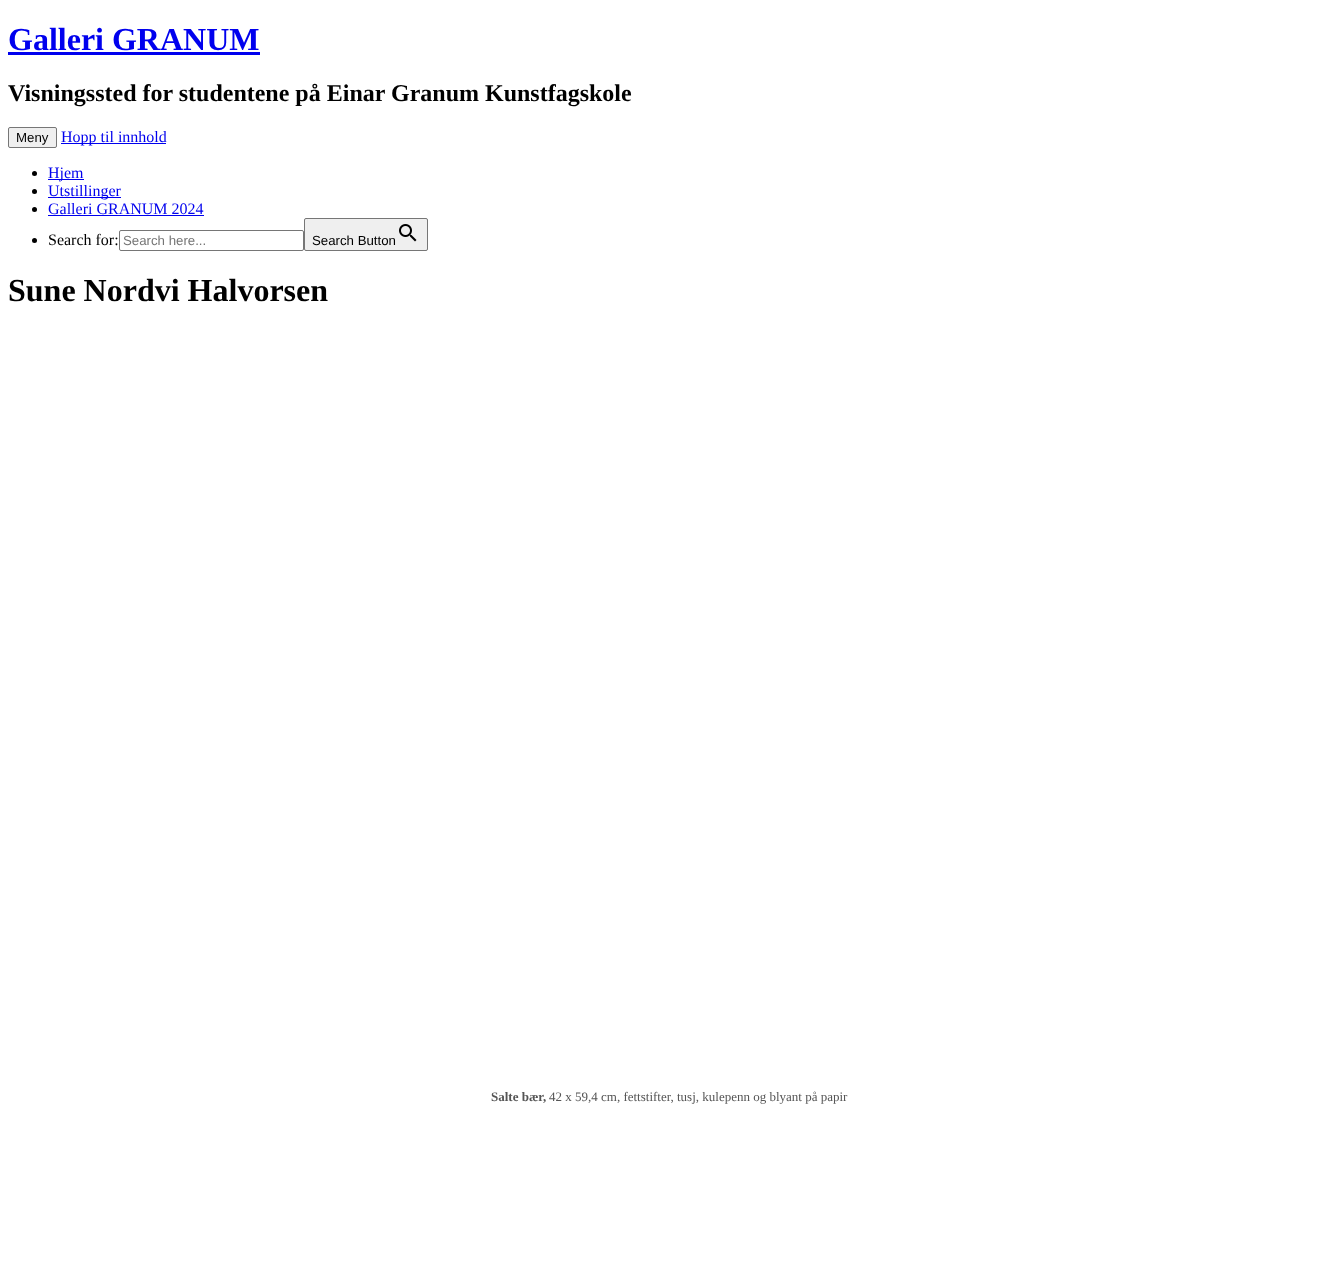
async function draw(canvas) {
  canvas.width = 1339;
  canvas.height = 1266;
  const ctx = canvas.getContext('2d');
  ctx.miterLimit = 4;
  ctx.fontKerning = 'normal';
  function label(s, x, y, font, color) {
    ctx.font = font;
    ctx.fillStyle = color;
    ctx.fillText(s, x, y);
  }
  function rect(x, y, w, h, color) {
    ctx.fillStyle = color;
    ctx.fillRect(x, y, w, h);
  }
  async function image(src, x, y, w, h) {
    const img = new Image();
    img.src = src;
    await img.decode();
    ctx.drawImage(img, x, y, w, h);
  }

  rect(0, 0, 1339, 1266, '#fff');
  label('Galleri GRANUM', 8, 50, 'bold 32px Liberation Serif', '#00e');
  rect(8, 52, 252, 3, '#00e');
  label('Visningssted for studentene på Einar Granum Kunstfagskole', 8, 101, 'bold 24px Liberation Serif', '#000');
  ctx.fillStyle = '#efefef';
  ctx.beginPath();
  ctx.roundRect(8.5, 127.5, 48, 20, 1.5);
  ctx.fill();
  ctx.strokeStyle = '#767676';
  ctx.stroke();
  label('Meny', 16, 142, '13.25px Liberation Sans', '#000');
  rect(61, 143, 105, 1, '#00e');
  label('Hopp til innhold', 61, 142, '16px Liberation Serif', '#00e');
  ctx.fillStyle = '#000';
  ctx.beginPath();
  ctx.arc(34.5, 173.5, 2.5, 0, 2 * Math.PI);
  ctx.fill();
  rect(48, 179, 36, 1, '#00e');
  label('Hjem', 48, 178, '16px Liberation Serif', '#00e');
  ctx.fillStyle = '#000';
  ctx.beginPath();
  ctx.arc(34.5, 191.5, 2.5, 0, 2 * Math.PI);
  ctx.fill();
  rect(48, 197, 73, 1, '#00e');
  label('Utstillinger', 48, 196, '16px Liberation Serif', '#00e');
  ctx.fillStyle = '#000';
  ctx.beginPath();
  ctx.arc(34.5, 209.5, 2.5, 0, 2 * Math.PI);
  ctx.fill();
  label('Galleri GRANUM 2024', 48, 214, '16px Liberation Serif', '#00e');
  rect(48, 215, 156, 1, '#00e');
  ctx.fillStyle = '#000';
  ctx.beginPath();
  ctx.arc(34.5, 240.5, 2.5, 0, 2 * Math.PI);
  ctx.fill();
  label('Search for:', 48, 245, '16px Liberation Serif', '#000');
  ctx.beginPath();
  ctx.roundRect(119.5, 230.5, 184, 20, 1.5);
  ctx.stroke();
  label('Search here...', 123, 245, '13.25px Liberation Sans', '#757575');
  ctx.fillStyle = '#efefef';
  ctx.beginPath();
  ctx.roundRect(304.5, 218.5, 123, 32, 1.5);
  ctx.fill();
  ctx.stroke();
  label('Search Button', 312, 245, '13.25px Liberation Sans', '#000');
  await image('assets/img1.png', 399, 224, 18, 18);
  label('Sune Nordvi Halvorsen', 8, 301, 'bold 32px Liberation Serif', '#000');
  label('Salte bær,', 491, 1101, 'bold 13px Liberation Serif', '#555');
  label('42 x 59,4 cm, fettstifter, tusj, kulepenn og blyant på papir', 549, 1101, '13px Liberation Serif', '#555');
}

draw(document.querySelector('canvas'));
